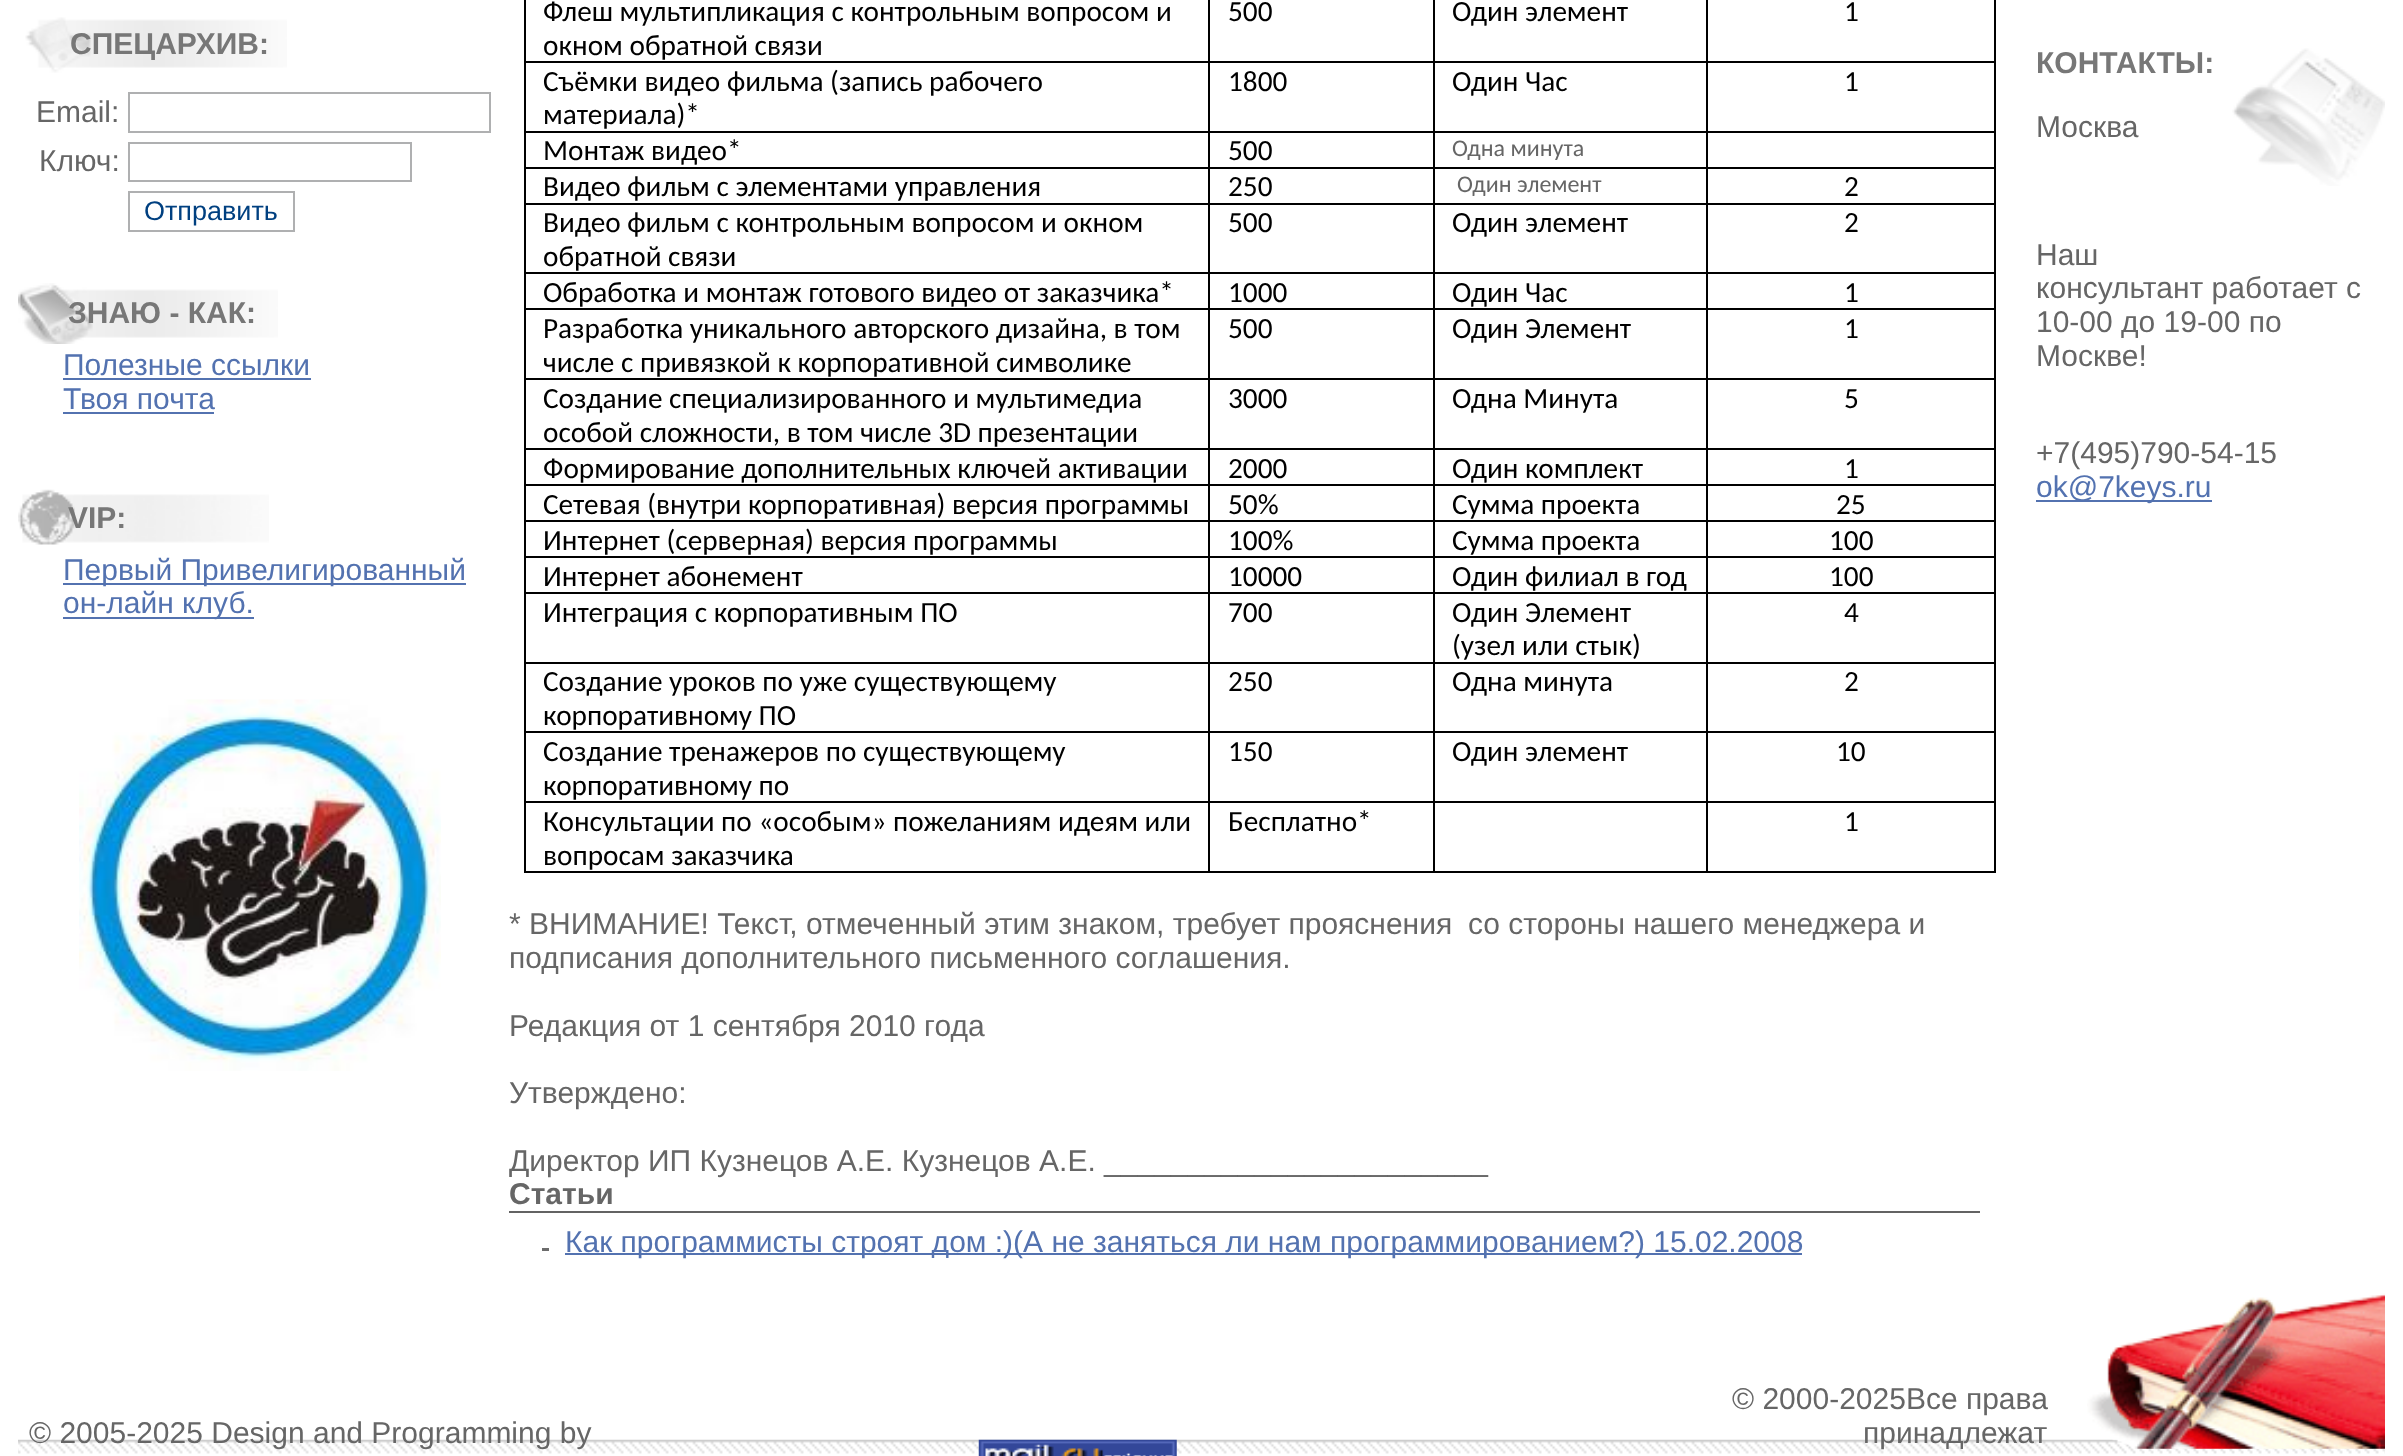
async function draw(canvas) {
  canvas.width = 2403;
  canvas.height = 1456;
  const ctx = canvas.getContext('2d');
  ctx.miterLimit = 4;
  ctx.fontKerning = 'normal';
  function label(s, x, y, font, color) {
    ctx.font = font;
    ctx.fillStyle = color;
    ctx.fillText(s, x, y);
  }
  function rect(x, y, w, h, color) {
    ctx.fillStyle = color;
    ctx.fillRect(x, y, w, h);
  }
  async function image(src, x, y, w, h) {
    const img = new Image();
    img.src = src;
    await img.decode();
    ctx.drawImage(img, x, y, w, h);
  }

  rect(0, 0, 2403, 1456, '#fff');
  await image('assets/img1.png', 25, 17, 262, 56);
  label('СПЕЦАРХИВ:', 70, 54, 'bold 30px Liberation Sans', '#777');
  label('Email:', 36, 122, '30px Liberation Sans', '#666');
  ctx.strokeStyle = '#afb0b1';
  ctx.lineWidth = 2;
  ctx.strokeRect(129, 93, 361, 39);
  label('Ключ:', 39, 171, '30px Liberation Sans', '#666');
  ctx.strokeRect(129, 143, 282, 38);
  ctx.strokeRect(129, 192, 165, 39);
  label('Отправить', 144, 220, '27px Liberation Sans', '#004080');
  await image('assets/img2.png', 18, 283, 260, 61);
  label('ЗНАЮ - КАК:', 68, 323, 'bold 30px Liberation Sans', '#777');
  label('Полезные ссылки', 63, 375, '30px Liberation Sans', '#5372b0');
  rect(63, 378, 248, 2, '#5372b0');
  label('Твоя почта', 63, 409, '30px Liberation Sans', '#5372b0');
  rect(63, 412, 151, 2, '#5372b0');
  await image('assets/img3.png', 18, 489, 251, 56);
  label('VIP:', 68, 528, 'bold 30px Liberation Sans', '#777');
  rect(63, 583, 403, 2, '#5372b0');
  label('Первый Привелигированный', 63, 580, '30px Liberation Sans', '#5372b0');
  rect(63, 617, 191, 2, '#5372b0');
  label('он-лайн клуб.', 63, 613, '30px Liberation Sans', '#5372b0');
  await image('assets/img4.png', 79, 699, 362, 372);
  rect(1994, 0, 2, 873, '#000');
  rect(1706, 871, 290, 2, '#000');
  rect(1706, 801, 2, 72, '#000');
  rect(1706, 801, 290, 2, '#000');
  rect(1706, 731, 2, 72, '#000');
  rect(1706, 731, 290, 2, '#000');
  rect(1706, 662, 2, 72, '#000');
  rect(1706, 662, 290, 2, '#000');
  rect(1706, 592, 2, 72, '#000');
  rect(1706, 592, 290, 2, '#000');
  rect(1706, 556, 2, 38, '#000');
  rect(1706, 556, 290, 2, '#000');
  rect(1706, 520, 2, 38, '#000');
  rect(1706, 520, 290, 2, '#000');
  rect(1706, 484, 2, 38, '#000');
  rect(1706, 484, 290, 2, '#000');
  rect(1706, 448, 2, 38, '#000');
  rect(1706, 448, 290, 2, '#000');
  rect(1706, 378, 2, 72, '#000');
  rect(1706, 378, 290, 2, '#000');
  rect(1706, 308, 2, 72, '#000');
  rect(1706, 308, 290, 2, '#000');
  rect(1706, 272, 2, 39, '#000');
  rect(1706, 272, 290, 2, '#000');
  rect(1706, 203, 2, 72, '#000');
  rect(1706, 203, 290, 2, '#000');
  rect(1706, 167, 2, 38, '#000');
  rect(1706, 167, 290, 2, '#000');
  rect(1706, 131, 2, 38, '#000');
  rect(1706, 131, 290, 2, '#000');
  rect(1706, 61, 2, 72, '#000');
  rect(1706, 61, 290, 2, '#000');
  rect(1706, 0, 2, 63, '#000');
  rect(1433, 871, 275, 2, '#000');
  rect(1433, 801, 2, 72, '#000');
  rect(1433, 801, 275, 2, '#000');
  rect(1433, 731, 2, 72, '#000');
  rect(1433, 731, 275, 2, '#000');
  rect(1433, 662, 2, 72, '#000');
  rect(1433, 662, 275, 2, '#000');
  rect(1433, 592, 2, 72, '#000');
  rect(1433, 592, 275, 2, '#000');
  rect(1433, 556, 2, 38, '#000');
  rect(1433, 556, 275, 2, '#000');
  rect(1433, 520, 2, 38, '#000');
  rect(1433, 520, 275, 2, '#000');
  rect(1433, 484, 2, 38, '#000');
  rect(1433, 484, 275, 2, '#000');
  rect(1433, 448, 2, 38, '#000');
  rect(1433, 448, 275, 2, '#000');
  rect(1433, 378, 2, 72, '#000');
  rect(1433, 378, 275, 2, '#000');
  rect(1433, 308, 2, 72, '#000');
  rect(1433, 308, 275, 2, '#000');
  rect(1433, 272, 2, 39, '#000');
  rect(1433, 272, 275, 2, '#000');
  rect(1433, 203, 2, 72, '#000');
  rect(1433, 203, 275, 2, '#000');
  rect(1433, 167, 2, 38, '#000');
  rect(1433, 167, 275, 2, '#000');
  rect(1433, 131, 2, 38, '#000');
  rect(1433, 131, 275, 2, '#000');
  rect(1433, 61, 2, 72, '#000');
  rect(1433, 61, 275, 2, '#000');
  rect(1433, 0, 2, 63, '#000');
  rect(1208, 871, 228, 2, '#000');
  rect(1208, 801, 2, 72, '#000');
  rect(1208, 801, 228, 2, '#000');
  rect(1208, 731, 2, 72, '#000');
  rect(1208, 731, 228, 2, '#000');
  rect(1208, 662, 2, 72, '#000');
  rect(1208, 662, 228, 2, '#000');
  rect(1208, 592, 2, 72, '#000');
  rect(1208, 592, 228, 2, '#000');
  rect(1208, 556, 2, 38, '#000');
  rect(1208, 556, 228, 2, '#000');
  rect(1208, 520, 2, 38, '#000');
  rect(1208, 520, 228, 2, '#000');
  rect(1208, 484, 2, 38, '#000');
  rect(1208, 484, 228, 2, '#000');
  rect(1208, 448, 2, 38, '#000');
  rect(1208, 448, 228, 2, '#000');
  rect(1208, 378, 2, 72, '#000');
  rect(1208, 378, 228, 2, '#000');
  rect(1208, 308, 2, 72, '#000');
  rect(1208, 308, 228, 2, '#000');
  rect(1208, 272, 2, 39, '#000');
  rect(1208, 272, 228, 2, '#000');
  rect(1208, 203, 2, 72, '#000');
  rect(1208, 203, 228, 2, '#000');
  rect(1208, 167, 2, 38, '#000');
  rect(1208, 167, 228, 2, '#000');
  rect(1208, 131, 2, 38, '#000');
  rect(1208, 131, 228, 2, '#000');
  rect(1208, 61, 2, 72, '#000');
  rect(1208, 61, 228, 2, '#000');
  rect(1208, 0, 2, 63, '#000');
  rect(524, 871, 687, 2, '#000');
  rect(524, 801, 2, 72, '#000');
  rect(524, 801, 687, 2, '#000');
  rect(524, 731, 2, 72, '#000');
  rect(524, 731, 687, 2, '#000');
  rect(524, 662, 2, 72, '#000');
  rect(524, 662, 687, 2, '#000');
  rect(524, 592, 2, 72, '#000');
  rect(524, 592, 687, 2, '#000');
  rect(524, 556, 2, 38, '#000');
  rect(524, 556, 687, 2, '#000');
  rect(524, 520, 2, 38, '#000');
  rect(524, 520, 687, 2, '#000');
  rect(524, 484, 2, 38, '#000');
  rect(524, 484, 687, 2, '#000');
  rect(524, 448, 2, 38, '#000');
  rect(524, 448, 687, 2, '#000');
  rect(524, 378, 2, 72, '#000');
  rect(524, 378, 687, 2, '#000');
  rect(524, 308, 2, 72, '#000');
  rect(524, 308, 687, 2, '#000');
  rect(524, 272, 2, 39, '#000');
  rect(524, 272, 687, 2, '#000');
  rect(524, 203, 2, 72, '#000');
  rect(524, 203, 687, 2, '#000');
  rect(524, 167, 2, 38, '#000');
  rect(524, 167, 687, 2, '#000');
  rect(524, 131, 2, 38, '#000');
  rect(524, 131, 687, 2, '#000');
  rect(524, 61, 2, 72, '#000');
  rect(524, 61, 687, 2, '#000');
  rect(524, 0, 2, 63, '#000');
  label('Флеш мультипликация с контрольным вопросом и', 543, 21, '29.25px Carlito', '#000');
  label('окном обратной связи', 543, 55, '29.25px Carlito', '#000');
  label('500', 1228, 21, '29.25px Carlito', '#000');
  label('Один элемент', 1452, 21, '29.25px Carlito', '#000');
  label('1', 1844, 21, '29.25px Carlito', '#000');
  label('Съёмки видео фильма (запись рабочего', 543, 91, '29.25px Carlito', '#000');
  label('материала)*', 543, 124, '29.25px Carlito', '#000');
  label('1800', 1228, 91, '29.25px Carlito', '#000');
  label('Один Час', 1452, 91, '29.25px Carlito', '#000');
  label('1', 1844, 91, '29.25px Carlito', '#000');
  label('Монтаж видео*', 543, 160, '29.25px Carlito', '#000');
  label('500', 1228, 160, '29.25px Carlito', '#000');
  label('Одна минута', 1452, 156, '24px Carlito', '#666');
  label('Видео фильм с элементами управления', 543, 196, '29.25px Carlito', '#000');
  label('250', 1228, 196, '29.25px Carlito', '#000');
  label('Один элемент', 1457, 192, '24px Carlito', '#666');
  label('2', 1844, 196, '29.25px Carlito', '#000');
  label('Видео фильм с контрольным вопросом и окном', 543, 232, '29.25px Carlito', '#000');
  label('обратной связи', 543, 266, '29.25px Carlito', '#000');
  label('500', 1228, 232, '29.25px Carlito', '#000');
  label('Один элемент', 1452, 232, '29.25px Carlito', '#000');
  label('2', 1844, 232, '29.25px Carlito', '#000');
  label('Обработка и монтаж готового видео от заказчика*', 543, 302, '29.25px Carlito', '#000');
  label('1000', 1228, 302, '29.25px Carlito', '#000');
  label('Один Час', 1452, 302, '29.25px Carlito', '#000');
  label('1', 1844, 302, '29.25px Carlito', '#000');
  label('Разработка уникального авторского дизайна, в том', 543, 338, '29.25px Carlito', '#000');
  label('числе с привязкой к корпоративной символике', 543, 372, '29.25px Carlito', '#000');
  label('500', 1228, 338, '29.25px Carlito', '#000');
  label('Один Элемент', 1452, 338, '29.25px Carlito', '#000');
  label('1', 1844, 338, '29.25px Carlito', '#000');
  label('Создание специализированного и мультимедиа', 543, 408, '29.25px Carlito', '#000');
  label('особой сложности, в том числе 3D презентации', 543, 442, '29.25px Carlito', '#000');
  label('3000', 1228, 408, '29.25px Carlito', '#000');
  label('Одна Минута', 1452, 408, '29.25px Carlito', '#000');
  label('5', 1844, 408, '29.25px Carlito', '#000');
  label('Формирование дополнительных ключей активации', 543, 478, '29.25px Carlito', '#000');
  label('2000', 1228, 478, '29.25px Carlito', '#000');
  label('Один комплект', 1452, 478, '29.25px Carlito', '#000');
  label('1', 1844, 478, '29.25px Carlito', '#000');
  label('Сетевая (внутри корпоративная) версия программы', 543, 514, '29.25px Carlito', '#000');
  label('50%', 1228, 514, '29.25px Carlito', '#000');
  label('Сумма проекта', 1452, 514, '29.25px Carlito', '#000');
  label('25', 1836, 514, '29.25px Carlito', '#000');
  label('Интернет (серверная) версия программы', 543, 550, '29.25px Carlito', '#000');
  label('100%', 1228, 550, '29.25px Carlito', '#000');
  label('Сумма проекта', 1452, 550, '29.25px Carlito', '#000');
  label('100', 1829, 550, '29.25px Carlito', '#000');
  label('Интернет абонемент', 543, 586, '29.25px Carlito', '#000');
  label('10000', 1228, 586, '29.25px Carlito', '#000');
  label('Один филиал в год', 1452, 586, '29.25px Carlito', '#000');
  label('100', 1829, 586, '29.25px Carlito', '#000');
  label('Интеграция с корпоративным ПО', 543, 622, '29.25px Carlito', '#000');
  label('700', 1228, 622, '29.25px Carlito', '#000');
  label('Один Элемент', 1452, 622, '29.25px Carlito', '#000');
  label('(узел или стык)', 1452, 655, '29.25px Carlito', '#000');
  label('4', 1844, 622, '29.25px Carlito', '#000');
  label('Создание уроков по уже существующему', 543, 691, '29.25px Carlito', '#000');
  label('корпоративному ПО', 543, 725, '29.25px Carlito', '#000');
  label('250', 1228, 691, '29.25px Carlito', '#000');
  label('Одна минута', 1452, 691, '29.25px Carlito', '#000');
  label('2', 1844, 691, '29.25px Carlito', '#000');
  label('Создание тренажеров по существующему', 543, 761, '29.25px Carlito', '#000');
  label('корпоративному по', 543, 795, '29.25px Carlito', '#000');
  label('150', 1228, 761, '29.25px Carlito', '#000');
  label('Один элемент', 1452, 761, '29.25px Carlito', '#000');
  label('10', 1836, 761, '29.25px Carlito', '#000');
  label('Консультации по «особым» пожеланиям идеям или', 543, 831, '29.25px Carlito', '#000');
  label('вопросам заказчика', 543, 865, '29.25px Carlito', '#000');
  label('Бесплатно*', 1228, 831, '29.25px Carlito', '#000');
  label('1', 1844, 831, '29.25px Carlito', '#000');
  label('* ВНИМАНИЕ! Текст, отмеченный этим знаком, требует прояснения', 509, 934, '30px Liberation Sans', '#666');
  label('со стороны нашего менеджера и', 1468, 934, '30px Liberation Sans', '#666');
  label('подписания дополнительного письменного соглашения.', 509, 968, '30px Liberation Sans', '#666');
  label('Редакция от 1 сентября 2010 года', 509, 1036, '30px Liberation Sans', '#666');
  label('Утверждено:', 509, 1103, '30px Liberation Sans', '#666');
  label('Директор ИП Кузнецов А.Е. Кузнецов А.Е. _______________________', 509, 1171, '30px Liberation Sans', '#666');
  label('Статьи', 509, 1204, 'bold 30px Liberation Sans', '#666');
  rect(509, 1211, 1471, 2, '#636363');
  rect(542, 1248, 7, 3, '#6c6c6c');
  rect(565, 1253, 1237, 2, '#5372b0');
  label('Как программисты строят дом :)(А не заняться ли нам программированием?) 15.02.2008', 565, 1252, '30px Liberation Sans', '#5372b0');
  await image('assets/img5.png', 2232, 48, 153, 138);
  label('КОНТАКТЫ:', 2036, 73, 'bold 30px Liberation Sans', '#777');
  label('Москва', 2036, 137, '30px Liberation Sans', '#666');
  label('Наш', 2036, 265, '30px Liberation Sans', '#666');
  label('консультант работает с', 2036, 298, '30px Liberation Sans', '#666');
  label('10-00 до 19-00 по', 2036, 332, '30px Liberation Sans', '#666');
  label('Москве!', 2036, 366, '30px Liberation Sans', '#666');
  label('+7(495)790-54-15', 2036, 463, '30px Liberation Sans', '#666');
  rect(2036, 500, 176, 2, '#5372b0');
  label('ok@7keys.ru', 2036, 497, '30px Liberation Sans', '#5372b0');
  await image('assets/img6.png', 18, 1439, 2367, 15);
  await image('assets/img7.png', 2087, 1293, 298, 156);
  label('© 2005-2025 Design and Programming by', 29, 1443, '30px Liberation Sans', '#666');
  await image('assets/img8.png', 978, 1439, 199, 17);
  label('© 2000-2025Все права', 1732, 1409, '30px Liberation Sans', '#666');
  label('принадлежат', 1863, 1443, '30px Liberation Sans', '#666');
}

draw(document.querySelector('canvas'));
